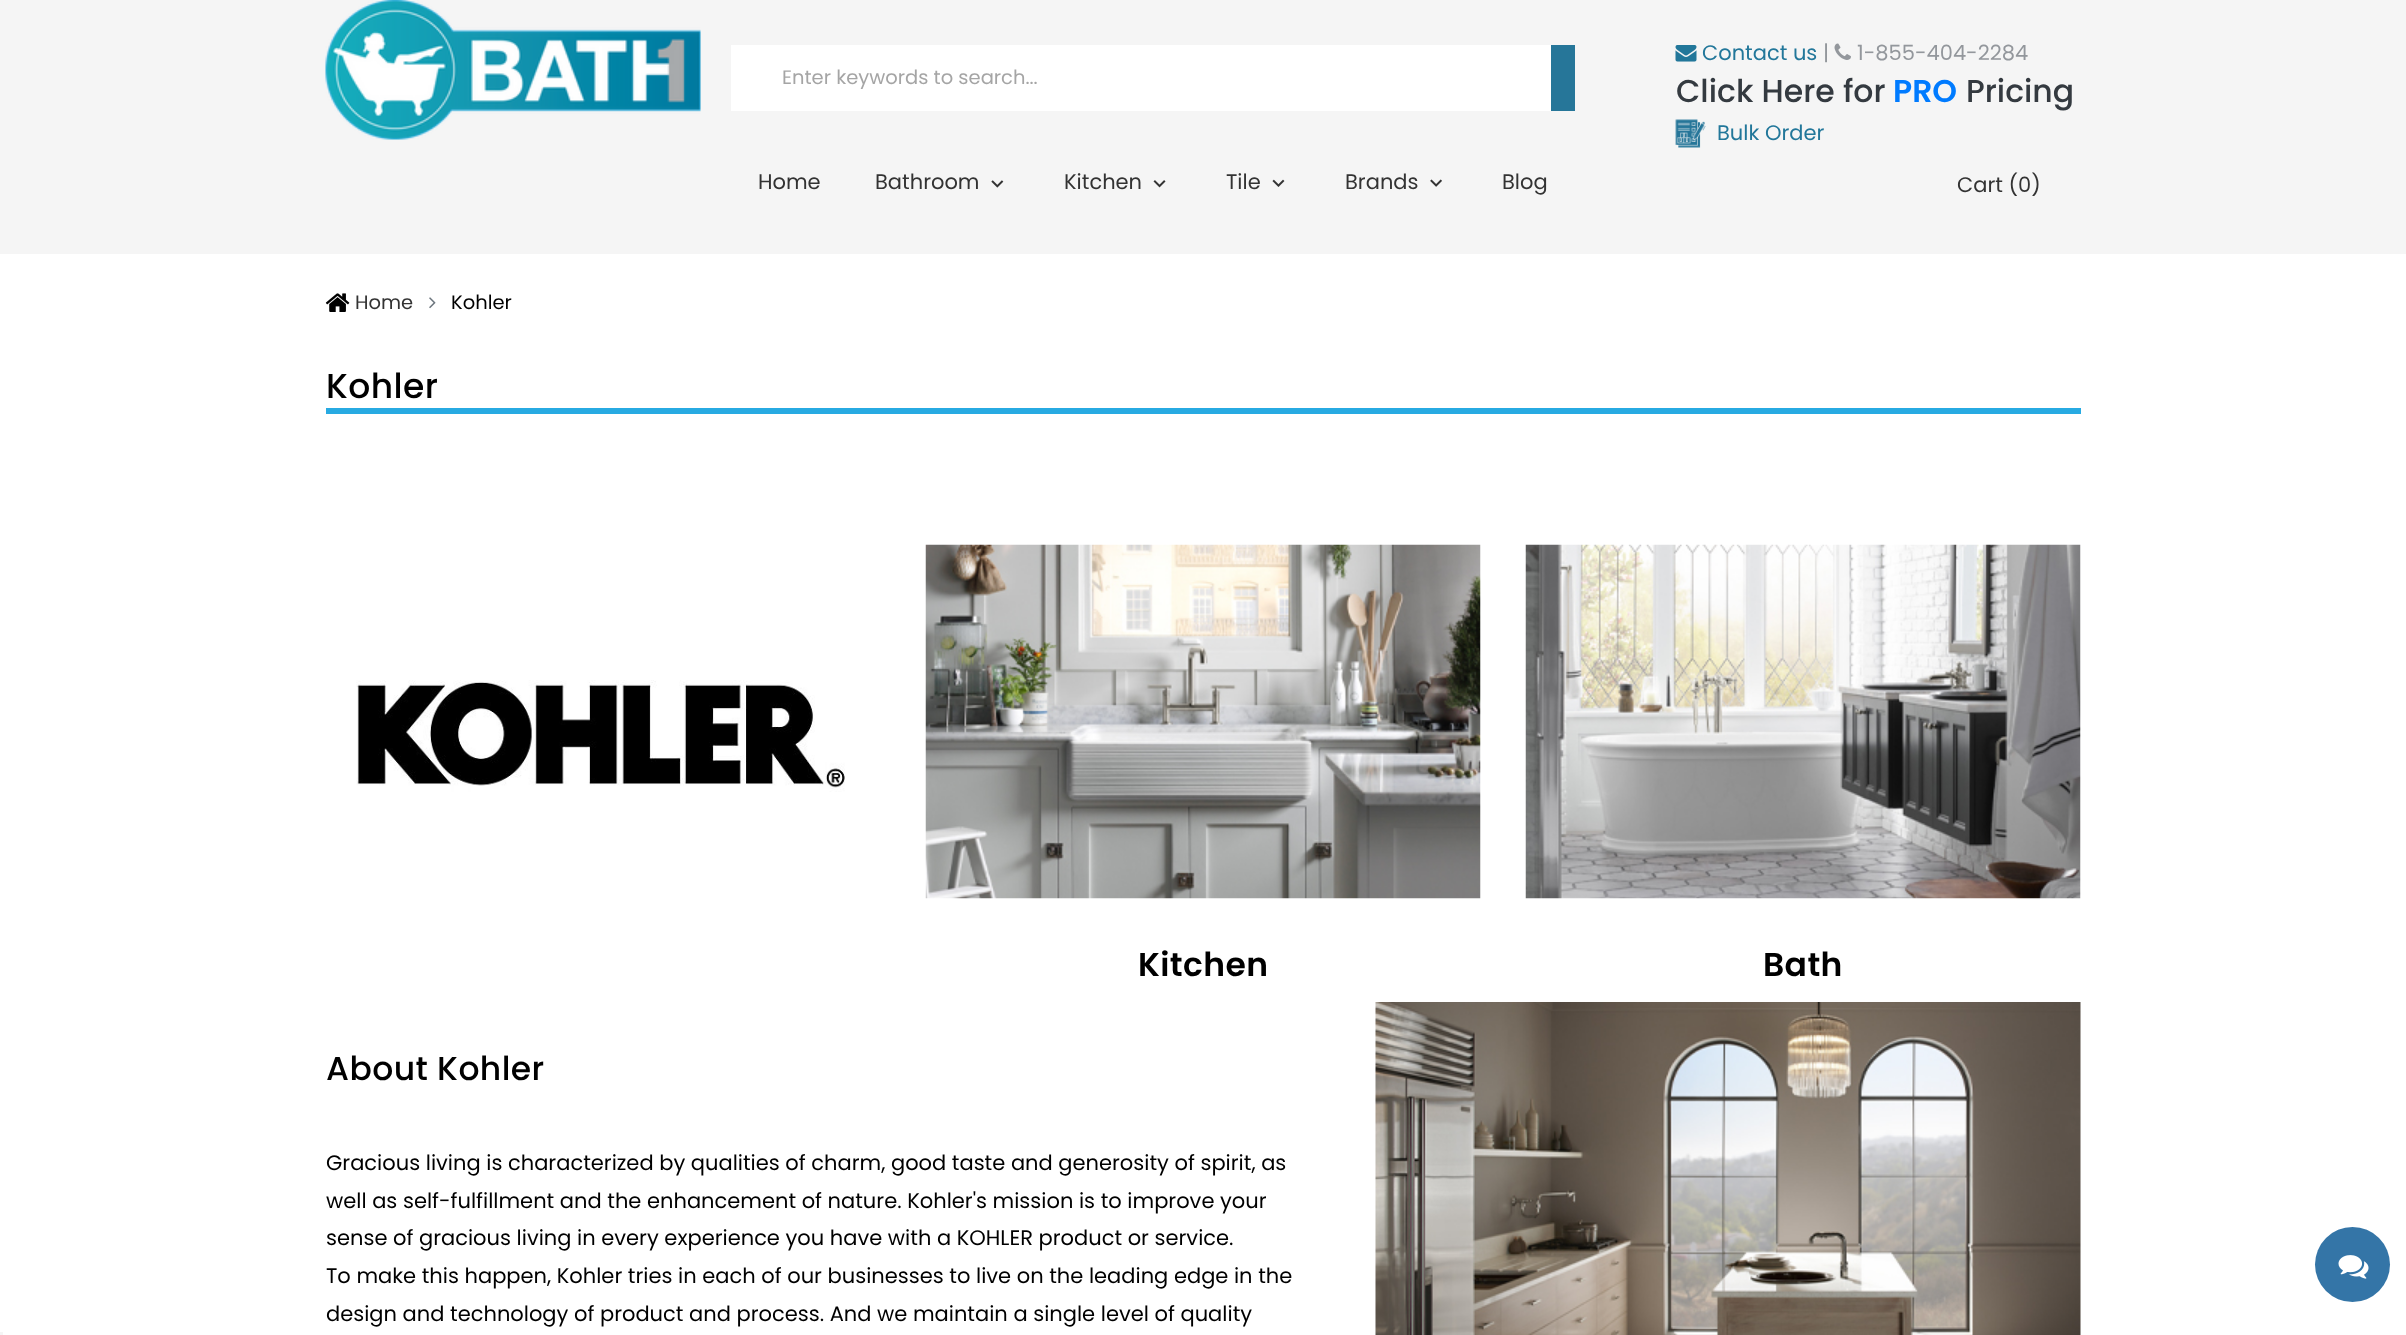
async function draw(canvas) {
  canvas.width = 2406;
  canvas.height = 1335;
  const ctx = canvas.getContext('2d');
  ctx.miterLimit = 4;
  ctx.fontKerning = 'normal';
  function label(s, x, y, font, color) {
    ctx.font = font;
    ctx.fillStyle = color;
    ctx.fillText(s, x, y);
  }
  function rect(x, y, w, h, color) {
    ctx.fillStyle = color;
    ctx.fillRect(x, y, w, h);
  }
  async function image(src, x, y, w, h) {
    const img = new Image();
    img.src = src;
    await img.decode();
    ctx.drawImage(img, x, y, w, h);
  }

  rect(0, 0, 2406, 1335, '#fff');
  rect(0, 0, 2406, 254, '#f5f5f5');
  await image('assets/img1.png', 325, 0, 376, 140);
  rect(731, 45, 820, 66, '#fff');
  label('Enter keywords to search...', 782, 84, '19.5px Poppins', '#a5a5a5');
  rect(1551, 45, 24, 66, '#267699');
  label('Home', 758, 189, '21px Poppins', '#333');
  label('Bathroom', 875, 189, '21px Poppins', '#333');
  await image('assets/img2.png', 991, 180, 13, 8);
  label('Kitchen', 1064, 189, '21px Poppins', '#333');
  await image('assets/img3.png', 1153, 180, 13, 8);
  label('Tile', 1226, 189, '21px Poppins', '#333');
  await image('assets/img4.png', 1272, 179, 13, 8);
  label('Brands', 1345, 189, '21px Poppins', '#333');
  await image('assets/img5.png', 1430, 179, 12, 8);
  label('Blog', 1502, 189, '21px Poppins', '#333');
  await image('assets/img6.png', 1675, 45, 22, 17);
  label('Contact us', 1702, 60, '21px Poppins', '#22779a');
  label('|', 1823, 60, '21px Poppins', '#93979c');
  await image('assets/img7.png', 1834, 43, 17, 17);
  label('1-855-404-2284', 1857, 60, '21px Poppins', '#93979c');
  label('Click Here for', 1676, 102, '500 31.5px Poppins', '#343a40');
  label('PRO', 1893, 102, '600 31.5px Poppins', '#007bff');
  label('Pricing', 1966, 102, '500 31.5px Poppins', '#343a40');
  await image('assets/img8.png', 1675, 119, 31, 29);
  label('Bulk Order', 1717, 140, '21px Poppins', '#22779a');
  label('Cart (0)', 1957, 192, '21px Poppins', '#333');
  await image('assets/img9.png', 325, 293, 25, 19);
  label('Home', 355, 309, '19.5px Poppins', '#333');
  await image('assets/img10.png', 429, 297, 7, 12);
  label('Kohler', 451, 309, '19.5px Poppins', '#000');
  rect(326, 408, 1755, 6, '#27aae2');
  ctx.letterSpacing = '0.4px';
  label('Kohler', 326, 398, '500 34.5px Poppins', '#000');
  await image('assets/img11.png', 356, 680, 489, 112);
  await image('assets/img12.png', 925, 544, 556, 355);
  label('Kitchen', 1138, 976, '600 33px Poppins', '#000');
  await image('assets/img13.png', 1525, 544, 556, 355);
  label('Bath', 1763, 976, '600 33px Poppins', '#000');
  label('About Kohler', 326, 1080, '500 33px Poppins', '#000');
  ctx.letterSpacing = '0px';
  label('Gracious living is characterized by qualities of charm, good taste and generosity of spirit, as', 326, 1170, '21px Poppins', '#000');
  label('well as self-fulfillment and the enhancement of nature. Kohler\'s mission is to improve your', 326, 1208, '21px Poppins', '#000');
  label('sense of gracious living in every experience you have with a KOHLER product or service.', 326, 1245, '21px Poppins', '#000');
  label('To make this happen, Kohler tries in each of our businesses to live on the leading edge in the', 326, 1283, '21px Poppins', '#000');
  label('design and technology of product and process. And we maintain a single level of quality', 326, 1321, '21px Poppins', '#000');
  await image('assets/img14.png', 1375, 1002, 706, 333);
  ctx.fillStyle = '#3475a7';
  ctx.beginPath();
  ctx.arc(2352.5, 1264.5, 37.5, 0, 2 * Math.PI);
  ctx.fill();
  await image('assets/img15.png', 2338, 1255, 31, 24);
  rect(0, 1332, 3, 3, '#f5f5f5');
}

draw(document.querySelector('canvas'));
